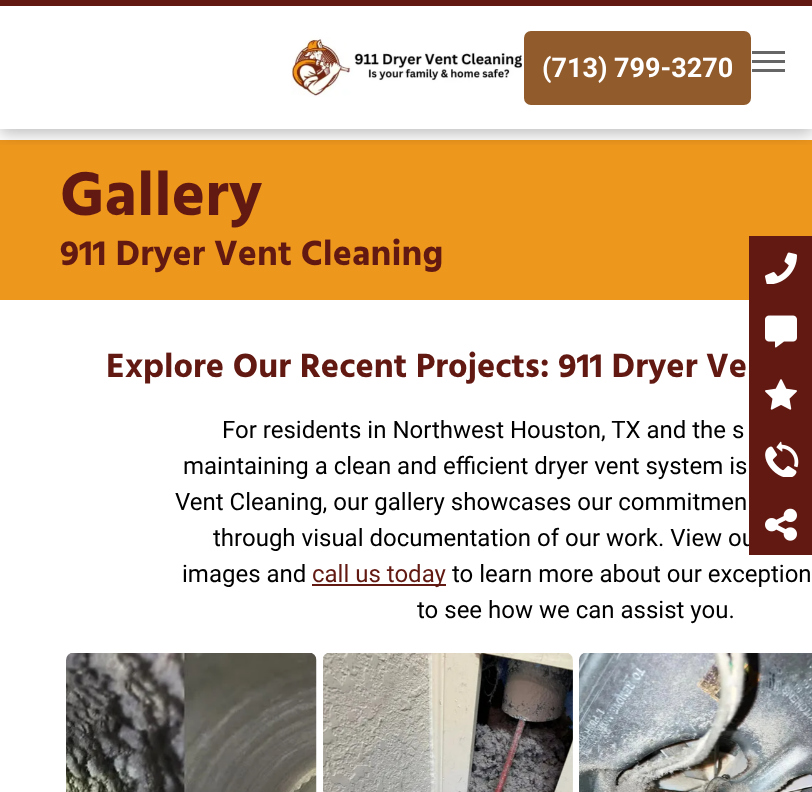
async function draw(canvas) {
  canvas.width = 812;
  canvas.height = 792;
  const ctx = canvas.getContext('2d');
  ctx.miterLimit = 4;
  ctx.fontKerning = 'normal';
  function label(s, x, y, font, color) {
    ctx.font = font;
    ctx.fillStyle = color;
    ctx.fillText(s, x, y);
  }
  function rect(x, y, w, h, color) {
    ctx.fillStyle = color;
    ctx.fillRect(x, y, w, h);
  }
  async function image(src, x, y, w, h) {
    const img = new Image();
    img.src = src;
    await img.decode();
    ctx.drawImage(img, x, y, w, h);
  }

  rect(0, 0, 812, 792, '#fff');
  rect(0, 140, 812, 160, '#ee971d');
  ctx.save();
  ctx.beginPath();
  ctx.rect(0, 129, 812, 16);
  ctx.clip();
  ctx.fillStyle = '#00000040';
  ctx.filter = 'blur(8px)';
  ctx.beginPath();
  ctx.rect(0, 5, 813, 129);
  ctx.fill();
  ctx.filter = 'none';
  ctx.restore();
  rect(0, 0, 812, 6, '#621912');
  await image('assets/img1.png', 291, 37, 231, 60);
  ctx.fillStyle = '#925b2c';
  ctx.beginPath();
  ctx.roundRect(523, 30, 229, 76, 8);
  ctx.fill();
  ctx.strokeStyle = '#fff';
  ctx.lineWidth = 2;
  ctx.stroke();
  label('(713) 799-3270', 542, 77, 'bold 27px Roboto', '#fff');
  rect(752, 51, 33, 3, '#666');
  rect(752, 60, 33, 3, '#666');
  rect(752, 69, 33, 3, '#666');
  label('Gallery', 60, 215, 'bold 63px Hind Siliguri', '#621912');
  label('911 Dryer Vent Cleaning', 60, 265, 'bold 36px Hind Siliguri', '#621912');
  label('Explore Our Recent Projects: 911 Dryer Ve', 106, 377, 'bold 34.5px Hind Siliguri', '#621912');
  label('For residents in Northwest Houston, TX and the s', 222, 438, '24px Roboto', '#000');
  label('maintaining a clean and efficient dryer vent system is', 183, 474, '24px Roboto', '#000');
  label('Vent Cleaning, our gallery showcases our commitmen', 175, 510, '24px Roboto', '#000');
  label('through visual documentation of our work. View ou', 213, 546, '24px Roboto', '#000');
  label('images and', 182, 582, '24px Roboto', '#000');
  rect(312, 584, 134, 2, '#621912');
  label('call us today', 312, 582, '24px Roboto', '#621912');
  label('to learn more about our exception', 452, 582, '24px Roboto', '#000');
  label('to see how we can assist you.', 417, 618, '24px Roboto', '#000');
  await image('assets/img2.png', 66, 653, 251, 139);
  await image('assets/img3.png', 323, 653, 250, 139);
  await image('assets/img4.png', 579, 653, 233, 139);
  rect(749, 236, 63, 319, '#621912');
  await image('assets/img5.png', 765, 252, 32, 32);
  await image('assets/img6.png', 765, 315, 32, 33);
  await image('assets/img7.png', 765, 379, 32, 31);
  await image('assets/img8.png', 765, 441, 34, 36);
  await image('assets/img9.png', 765, 508, 32, 33);
}

draw(document.querySelector('canvas'));
